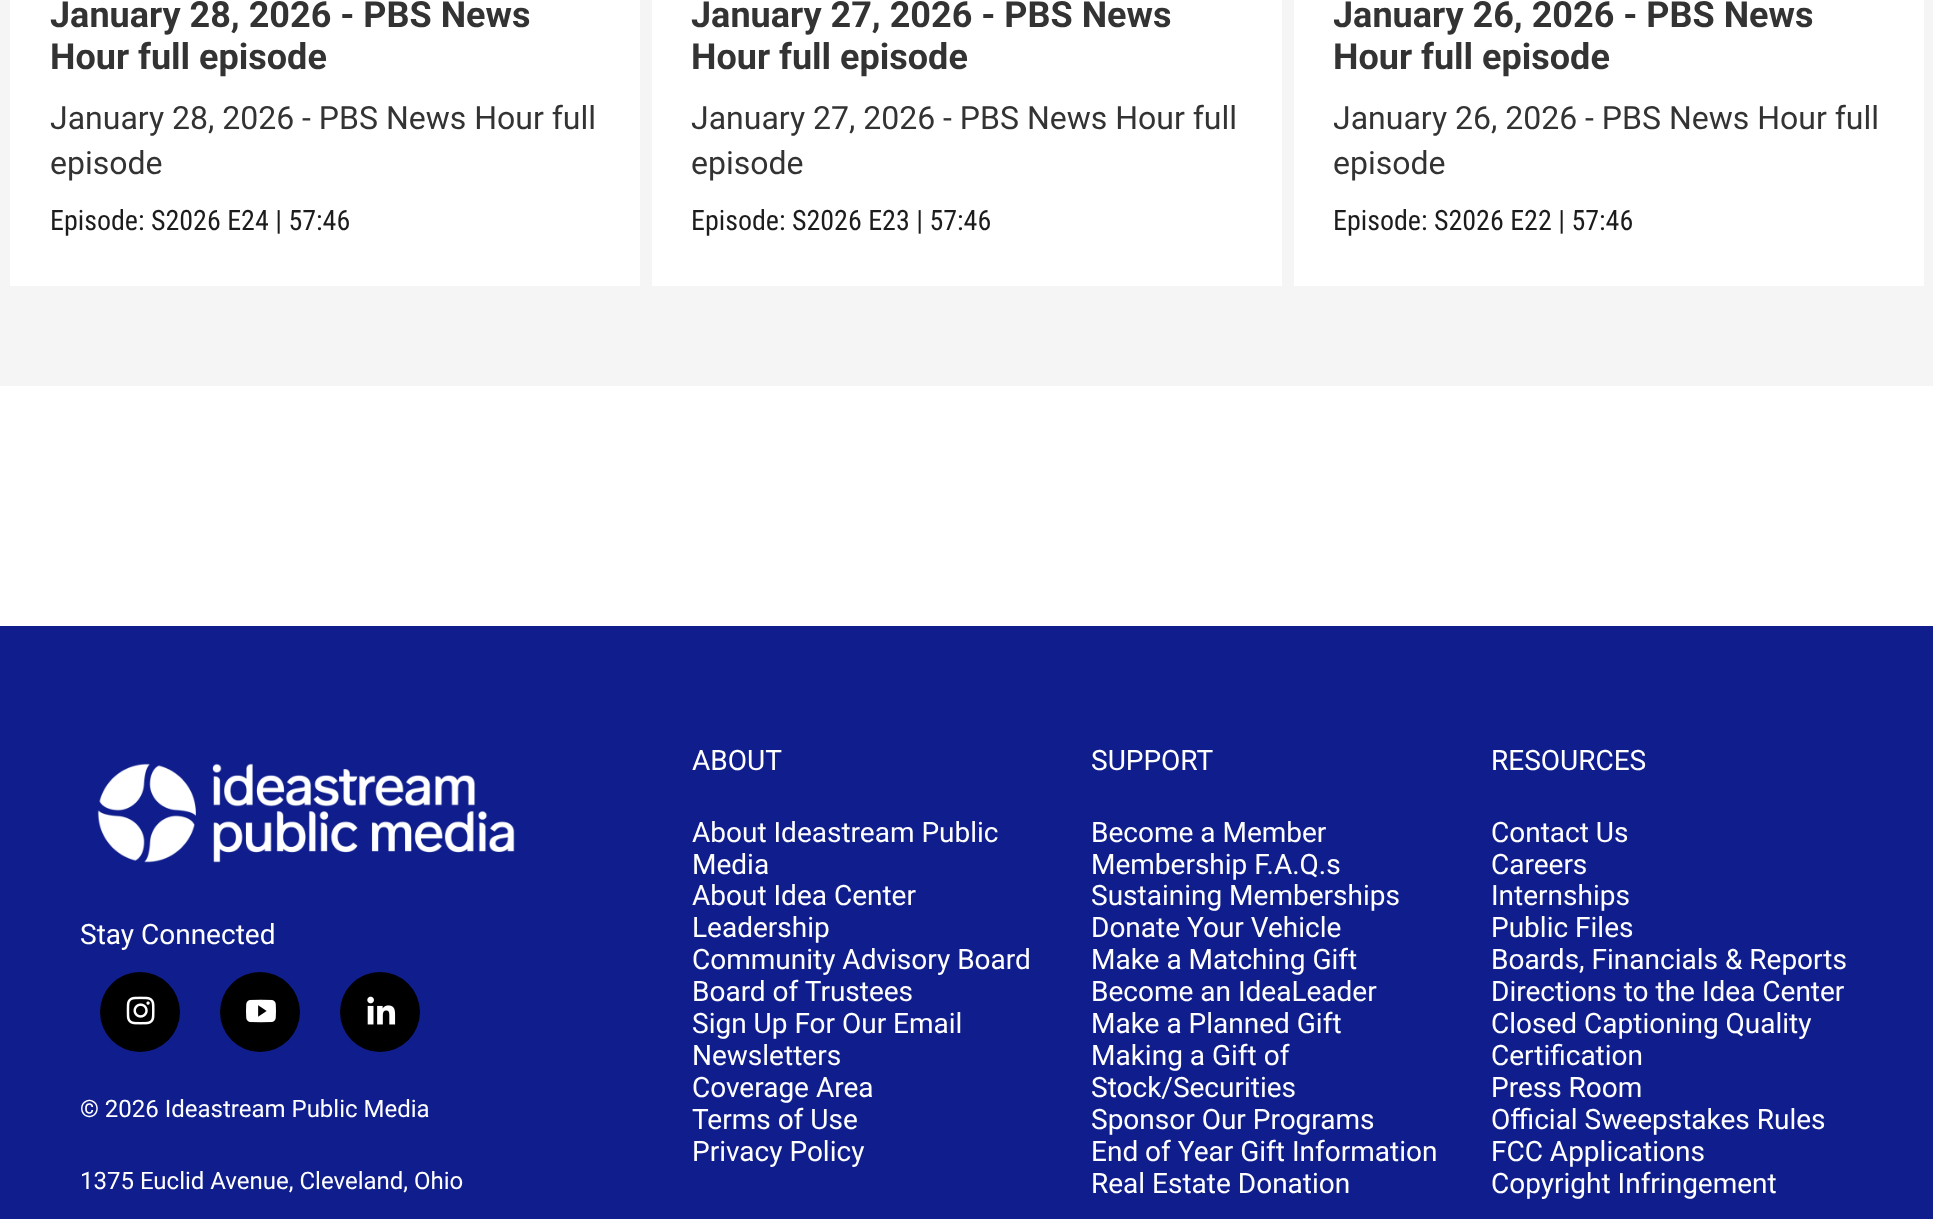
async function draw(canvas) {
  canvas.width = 1933;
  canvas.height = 1219;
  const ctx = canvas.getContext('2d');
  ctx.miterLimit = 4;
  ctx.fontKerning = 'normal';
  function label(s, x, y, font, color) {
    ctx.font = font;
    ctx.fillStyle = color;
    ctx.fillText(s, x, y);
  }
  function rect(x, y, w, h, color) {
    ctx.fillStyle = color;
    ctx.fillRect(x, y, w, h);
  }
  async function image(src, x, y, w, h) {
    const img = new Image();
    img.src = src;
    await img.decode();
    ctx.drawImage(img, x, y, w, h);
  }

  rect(0, 0, 1933, 1219, '#fff');
  rect(0, 0, 1933, 386, '#f5f5f5');
  rect(10, 0, 630, 286, '#fff');
  label('January 28, 2026 - PBS News', 50, 27, 'bold 36px Roboto', '#333');
  label('Hour full episode', 50, 69, 'bold 36px Roboto', '#333');
  label('January 28, 2026 - PBS News Hour full', 50, 129, '32px Roboto', '#333');
  label('episode', 50, 174, '32px Roboto', '#333');
  label('Episode: S2026 E24 | 57:46', 50, 230, '28px Roboto Condensed', '#1c1c1c');
  rect(652, 0, 630, 286, '#fff');
  label('January 27, 2026 - PBS News', 691, 27, 'bold 36px Roboto', '#333');
  label('Hour full episode', 691, 69, 'bold 36px Roboto', '#333');
  label('January 27, 2026 - PBS News Hour full', 691, 129, '32px Roboto', '#333');
  label('episode', 691, 174, '32px Roboto', '#333');
  label('Episode: S2026 E23 | 57:46', 691, 230, '28px Roboto Condensed', '#1c1c1c');
  rect(1294, 0, 630, 286, '#fff');
  ctx.save();
  ctx.beginPath();
  ctx.rect(1334, 0, 550, 78);
  ctx.clip();
  label('January 26, 2026 - PBS News', 1333, 27, 'bold 36px Roboto', '#333');
  ctx.restore();
  label('Hour full episode', 1333, 69, 'bold 36px Roboto', '#333');
  ctx.save();
  ctx.beginPath();
  ctx.rect(1334, 98, 550, 88);
  ctx.clip();
  label('January 26, 2026 - PBS News Hour full', 1333, 129, '32px Roboto', '#333');
  ctx.restore();
  label('episode', 1333, 174, '32px Roboto', '#333');
  label('Episode: S2026 E22 | 57:46', 1333, 230, '28px Roboto Condensed', '#1c1c1c');
  rect(0, 626, 1933, 593, '#0f1e8c');
  await image('assets/img1.png', 97, 763, 418, 100);
  label('Stay Connected', 80, 944, '28px Roboto', '#fff');
  ctx.fillStyle = '#000';
  ctx.beginPath();
  ctx.arc(140, 1012, 40, 0, 2 * Math.PI);
  ctx.fill();
  await image('assets/img2.png', 126, 996, 29, 29);
  ctx.beginPath();
  ctx.arc(260, 1012, 40, 0, 2 * Math.PI);
  ctx.fill();
  await image('assets/img3.png', 246, 999, 30, 24);
  ctx.beginPath();
  ctx.arc(380, 1012, 40, 0, 2 * Math.PI);
  ctx.fill();
  await image('assets/img4.png', 367, 996, 29, 29);
  label('© 2026 Ideastream Public Media', 80, 1117, '24px Roboto', '#fff');
  label('1375 Euclid Avenue, Cleveland, Ohio', 80, 1189, '24px Roboto', '#fff');
  label('ABOUT', 692, 770, '28px Roboto', '#fff');
  label('About Ideastream Public', 692, 842, '28px Roboto', '#fff');
  label('Media', 692, 874, '28px Roboto', '#fff');
  label('About Idea Center', 692, 905, '28px Roboto', '#fff');
  label('Leadership', 692, 937, '28px Roboto', '#fff');
  label('Community Advisory Board', 692, 969, '28px Roboto', '#fff');
  label('Board of Trustees', 692, 1001, '28px Roboto', '#fff');
  label('Sign Up For Our Email', 692, 1033, '28px Roboto', '#fff');
  label('Newsletters', 692, 1065, '28px Roboto', '#fff');
  label('Coverage Area', 692, 1097, '28px Roboto', '#fff');
  label('Terms of Use', 692, 1129, '28px Roboto', '#fff');
  label('Privacy Policy', 692, 1161, '28px Roboto', '#fff');
  label('SUPPORT', 1091, 770, '28px Roboto', '#fff');
  label('Become a Member', 1091, 842, '28px Roboto', '#fff');
  label('Membership F.A.Q.s', 1091, 874, '28px Roboto', '#fff');
  label('Sustaining Memberships', 1091, 905, '28px Roboto', '#fff');
  label('Donate Your Vehicle', 1091, 937, '28px Roboto', '#fff');
  label('Make a Matching Gift', 1091, 969, '28px Roboto', '#fff');
  label('Become an IdeaLeader', 1091, 1001, '28px Roboto', '#fff');
  label('Make a Planned Gift', 1091, 1033, '28px Roboto', '#fff');
  label('Making a Gift of', 1091, 1065, '28px Roboto', '#fff');
  label('Stock/Securities', 1091, 1097, '28px Roboto', '#fff');
  label('Sponsor Our Programs', 1091, 1129, '28px Roboto', '#fff');
  label('End of Year Gift Information', 1091, 1161, '28px Roboto', '#fff');
  label('Real Estate Donation', 1091, 1193, '28px Roboto', '#fff');
  label('RESOURCES', 1491, 770, '28px Roboto', '#fff');
  label('Contact Us', 1491, 842, '28px Roboto', '#fff');
  label('Careers', 1491, 874, '28px Roboto', '#fff');
  label('Internships', 1491, 905, '28px Roboto', '#fff');
  label('Public Files', 1491, 937, '28px Roboto', '#fff');
  label('Boards, Financials & Reports', 1491, 969, '28px Roboto', '#fff');
  label('Directions to the Idea Center', 1491, 1001, '28px Roboto', '#fff');
  label('Closed Captioning Quality', 1491, 1033, '28px Roboto', '#fff');
  label('Certification', 1491, 1065, '28px Roboto', '#fff');
  label('Press Room', 1491, 1097, '28px Roboto', '#fff');
  label('Official Sweepstakes Rules', 1491, 1129, '28px Roboto', '#fff');
  label('FCC Applications', 1491, 1161, '28px Roboto', '#fff');
  label('Copyright Infringement', 1491, 1193, '28px Roboto', '#fff');
}

draw(document.querySelector('canvas'));
